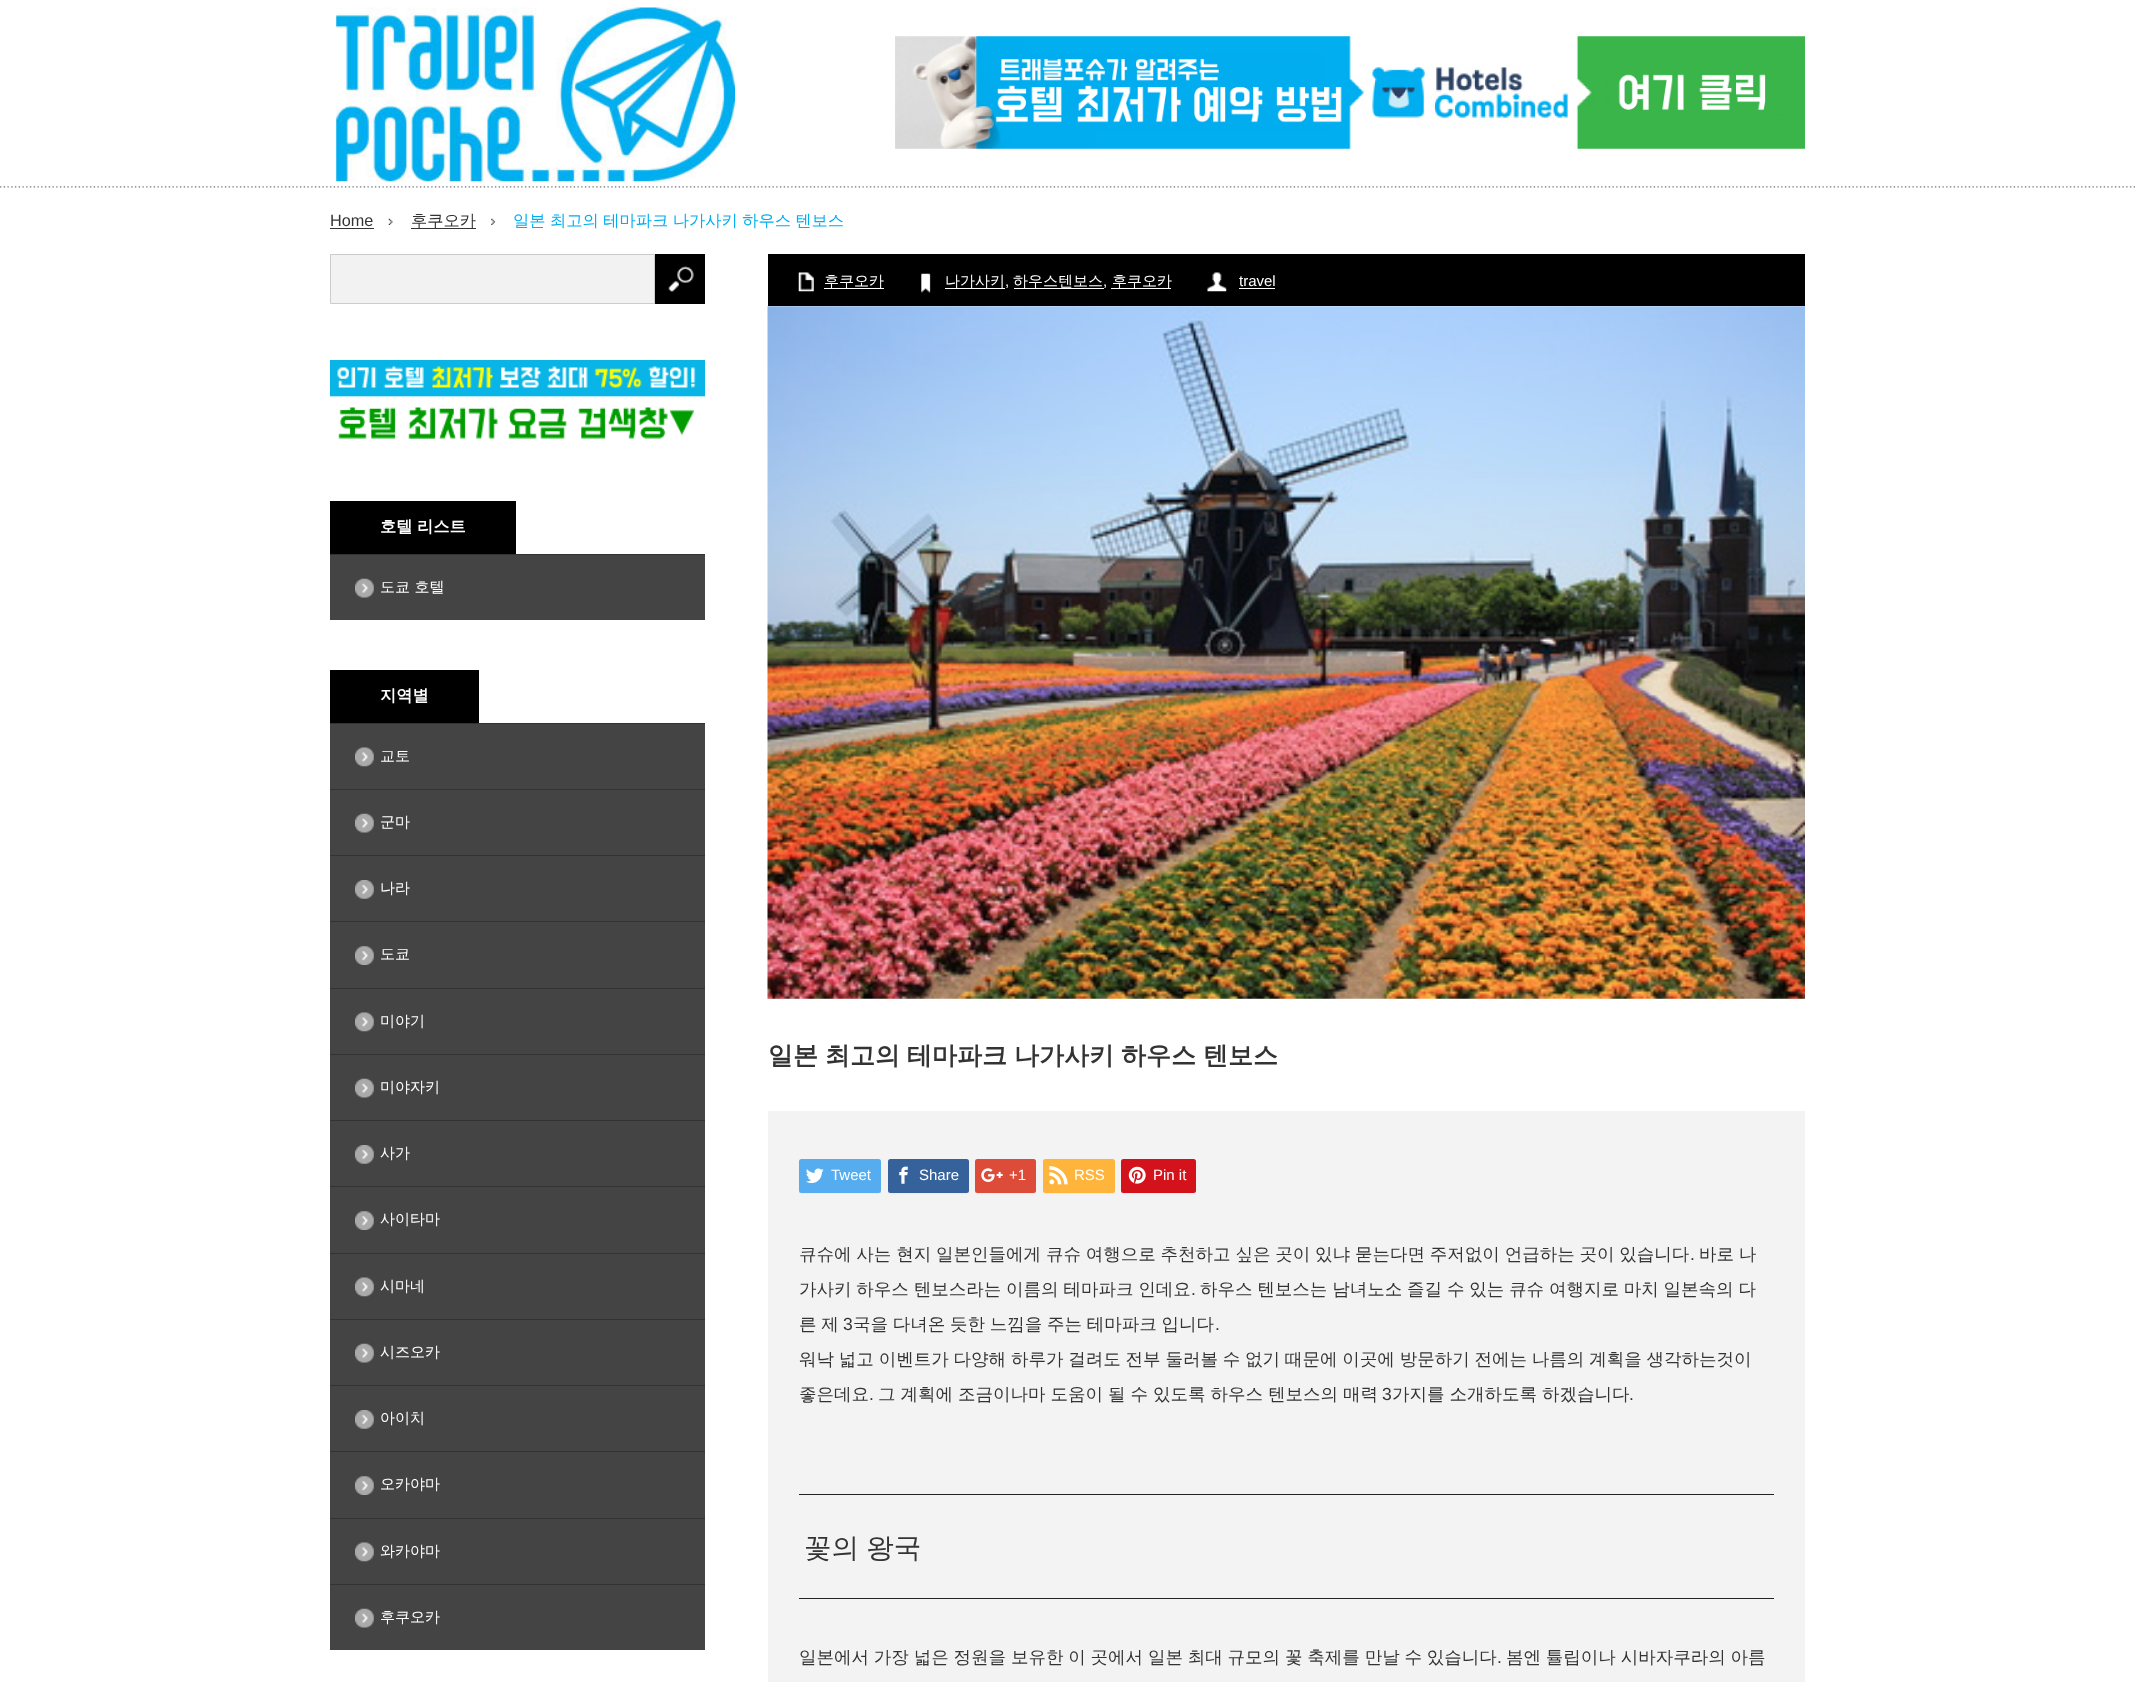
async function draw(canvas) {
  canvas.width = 2135;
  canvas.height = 1682;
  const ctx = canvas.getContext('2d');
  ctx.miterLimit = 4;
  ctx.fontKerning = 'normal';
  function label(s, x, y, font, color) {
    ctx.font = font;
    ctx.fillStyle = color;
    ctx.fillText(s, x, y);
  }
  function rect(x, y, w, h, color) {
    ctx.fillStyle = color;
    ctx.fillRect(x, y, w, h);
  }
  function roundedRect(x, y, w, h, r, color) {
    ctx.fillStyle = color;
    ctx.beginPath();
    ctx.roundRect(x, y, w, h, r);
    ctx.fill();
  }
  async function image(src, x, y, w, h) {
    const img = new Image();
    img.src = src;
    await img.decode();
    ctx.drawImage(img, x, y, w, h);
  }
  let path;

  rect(0, 0, 2135, 1682, '#fff');
  await image('assets/img1.png', 0, 186, 2135, 2);
  await image('assets/img2.png', 336, 7, 399, 175);
  await image('assets/img3.png', 895, 36, 910, 113);
  await image('assets/img4.png', 388, 218, 5, 7);
  label('Home', 330, 226, '16.25px Liberation Sans', '#333');
  rect(330, 228, 44, 1, '#333');
  await image('assets/img5.png', 491, 218, 4, 7);
  rect(411, 228, 65, 1, '#333');
  label('후쿠오카', 411, 226, '500 16.25px WenQuanYi Zen Hei', '#333');
  ctx.wordSpacing = '-0.4px';
  label('일본 최고의 테마파크 나가사키 하우스 텐보스', 513, 226, '500 16.25px WenQuanYi Zen Hei', '#01aef0');
  ctx.fillStyle = '#f2f2f2';
  ctx.beginPath();
  ctx.rect(330.5, 254.5, 324, 49);
  ctx.fill();
  ctx.strokeStyle = '#ccc';
  ctx.stroke();
  rect(655, 254, 50, 50, '#000');
  await image('assets/img6.png', 668, 266, 26, 26);
  await image('assets/img7.png', 330, 360, 375, 79);
  rect(330, 501, 186, 53, '#000');
  label('호텔 리스트', 380, 532, 'bold 16.25px WenQuanYi Zen Hei', '#fff');
  rect(330, 555, 375, 65, '#444');
  await image('assets/img8.png', 355, 578, 19, 20);
  rect(330, 554, 375, 1, '#333');
  ctx.wordSpacing = '0px';
  label('도쿄 호텔', 380, 592, '500 15px WenQuanYi Zen Hei', '#fff');
  rect(330, 670, 149, 53, '#000');
  label('지역별', 380, 701, 'bold 16.25px WenQuanYi Zen Hei', '#fff');
  rect(330, 724, 375, 65, '#444');
  await image('assets/img9.png', 355, 747, 19, 20);
  rect(330, 723, 375, 1, '#333');
  label('교토', 380, 761, '500 15px WenQuanYi Zen Hei', '#fff');
  rect(330, 790, 375, 65, '#444');
  await image('assets/img10.png', 355, 813, 19, 20);
  rect(330, 789, 375, 1, '#333');
  label('군마', 380, 827, '500 15px WenQuanYi Zen Hei', '#fff');
  rect(330, 856, 375, 65, '#444');
  await image('assets/img11.png', 355, 880, 19, 19);
  rect(330, 855, 375, 1, '#333');
  label('나라', 380, 893, '500 15px WenQuanYi Zen Hei', '#fff');
  rect(330, 922, 375, 66, '#444');
  await image('assets/img12.png', 355, 946, 19, 19);
  rect(330, 921, 375, 1, '#333');
  label('도쿄', 380, 959, '500 15px WenQuanYi Zen Hei', '#fff');
  rect(330, 989, 375, 65, '#444');
  await image('assets/img9.png', 355, 1012, 19, 20);
  rect(330, 988, 375, 1, '#333');
  label('미야기', 380, 1026, '500 15px WenQuanYi Zen Hei', '#fff');
  rect(330, 1055, 375, 65, '#444');
  await image('assets/img10.png', 355, 1078, 19, 20);
  rect(330, 1054, 375, 1, '#333');
  label('미야자키', 380, 1092, '500 15px WenQuanYi Zen Hei', '#fff');
  rect(330, 1121, 375, 65, '#444');
  await image('assets/img11.png', 355, 1145, 19, 19);
  rect(330, 1120, 375, 1, '#333');
  label('사가', 380, 1158, '500 15px WenQuanYi Zen Hei', '#fff');
  rect(330, 1187, 375, 66, '#444');
  await image('assets/img12.png', 355, 1211, 19, 19);
  rect(330, 1186, 375, 1, '#333');
  label('사이타마', 380, 1224, '500 15px WenQuanYi Zen Hei', '#fff');
  rect(330, 1254, 375, 65, '#444');
  await image('assets/img9.png', 355, 1277, 19, 20);
  rect(330, 1253, 375, 1, '#333');
  label('시마네', 380, 1291, '500 15px WenQuanYi Zen Hei', '#fff');
  rect(330, 1320, 375, 65, '#444');
  await image('assets/img10.png', 355, 1343, 19, 20);
  rect(330, 1319, 375, 1, '#333');
  label('시즈오카', 380, 1357, '500 15px WenQuanYi Zen Hei', '#fff');
  rect(330, 1386, 375, 65, '#444');
  await image('assets/img11.png', 355, 1410, 19, 19);
  rect(330, 1385, 375, 1, '#333');
  label('아이치', 380, 1423, '500 15px WenQuanYi Zen Hei', '#fff');
  rect(330, 1452, 375, 66, '#444');
  await image('assets/img12.png', 355, 1476, 19, 19);
  rect(330, 1451, 375, 1, '#333');
  label('오카야마', 380, 1489, '500 15px WenQuanYi Zen Hei', '#fff');
  rect(330, 1519, 375, 65, '#444');
  await image('assets/img9.png', 355, 1542, 19, 20);
  rect(330, 1518, 375, 1, '#333');
  label('와카야마', 380, 1556, '500 15px WenQuanYi Zen Hei', '#fff');
  rect(330, 1585, 375, 65, '#444');
  await image('assets/img10.png', 355, 1608, 19, 20);
  rect(330, 1584, 375, 1, '#333');
  label('후쿠오카', 380, 1622, '500 15px WenQuanYi Zen Hei', '#fff');
  rect(768, 254, 1037, 52, '#000');
  await image('assets/img13.png', 798, 272, 16, 20);
  rect(824, 288, 60, 1, '#fff');
  label('후쿠오카', 824, 286, '500 15px WenQuanYi Zen Hei', '#fff');
  await image('assets/img14.png', 921, 273, 10, 20);
  rect(945, 288, 60, 1, '#fff');
  label('나가사키', 945, 286, '500 15px WenQuanYi Zen Hei', '#fff');
  label(',', 1005, 286, '15px Liberation Sans', '#fff');
  rect(1014, 288, 90, 1, '#fff');
  label('하우스텐보스', 1013, 286, '500 15px WenQuanYi Zen Hei', '#fff');
  label(',', 1103, 286, '15px Liberation Sans', '#fff');
  rect(1111, 288, 60, 1, '#fff');
  label('후쿠오카', 1112, 286, '500 15px WenQuanYi Zen Hei', '#fff');
  await image('assets/img15.png', 1207, 272, 20, 20);
  label('travel', 1239, 286, '15px Liberation Sans', '#fff');
  rect(1239, 288, 36, 1, '#fff');
  await image('assets/img16.png', 767, 306, 1038, 693);
  ctx.wordSpacing = '-0.5px';
  label('일본 최고의 테마파크 나가사키 하우스 텐보스', 768, 1064, 'bold 25px WenQuanYi Zen Hei', '#333');
  rect(768, 1111, 1037, 571, '#f3f3f3');
  ctx.fillStyle = '#ececec';
  path = new Path2D('M799 1191C799 1192 800 1194 801 1194H878C880 1194 881 1193 881 1191L880 1192H801C800 1192 799 1192 799 1191Z');
  ctx.fill(path);
  roundedRect(799, 1159, 82, 34, 2.5, '#55acee');
  await image('assets/img17.png', 806, 1168, 18, 16);
  ctx.wordSpacing = '0px';
  label('Tweet', 831, 1180, '15px Liberation Sans', '#fff');
  ctx.fillStyle = '#ececec';
  path = new Path2D('M888 1192C888 1196 898 1194 903 1194H954C971 1194 969 1197 969 1182V1161V1190C969 1191 968 1192 966 1192H890C889 1192 888 1192 888 1192Z');
  ctx.fill(path);
  roundedRect(888, 1159, 81, 34, 2.5, '#35629a');
  await image('assets/img18.png', 899, 1166, 9, 18);
  label('Share', 919, 1180, '15px Liberation Sans', '#fff');
  ctx.fillStyle = '#ececec';
  path = new Path2D('M975 1190C975 1196 981 1194 987 1194H1034C1035 1194 1036 1193 1036 1191C1036 1192 1035 1192 1034 1192H978C976 1192 975 1191 975 1190Z');
  ctx.fill(path);
  roundedRect(975, 1159, 61, 34, 2.5, '#dd4b39');
  await image('assets/img19.png', 981, 1168, 22, 14);
  label('+1', 1009, 1180, '15px Liberation Sans', '#fff');
  ctx.fillStyle = '#ececec';
  path = new Path2D('M1043 1192C1043 1193 1044 1194 1046 1194H1112C1114 1194 1115 1193 1115 1192V1190C1115 1191 1114 1192 1112 1192H1045Z');
  ctx.fill(path);
  roundedRect(1043, 1159, 72, 34, 2.5, '#ffb53c');
  await image('assets/img20.png', 1049, 1166, 19, 19);
  label('RSS', 1074, 1180, '15px Liberation Sans', '#fff');
  ctx.fillStyle = '#ececec';
  path = new Path2D('M1121 1161V1182C1121 1197 1119 1194 1135 1194H1194C1195 1194 1196 1192 1196 1191L1194 1192H1124L1122 1191C1121 1190 1121 1165 1121 1161Z');
  ctx.fill(path);
  roundedRect(1121, 1159, 75, 34, 2.5, '#d4121c');
  await image('assets/img21.png', 1128, 1166, 18, 18);
  label('Pin it', 1153, 1180, '15px Liberation Sans', '#fff');
  ctx.wordSpacing = '-0.4px';
  label('큐슈에 사는 현지 일본인들에게 큐슈 여행으로 추천하고 싶은 곳이 있냐 묻는다면 주저없이 언급하는 곳이 있습니다', 799, 1260, '500 17.5px WenQuanYi Zen Hei', '#333');
  ctx.wordSpacing = '0px';
  label('.', 1690, 1260, '17.5px Liberation Sans', '#333');
  ctx.wordSpacing = '-0.4px';
  label('바로 나', 1699, 1260, '500 17.5px WenQuanYi Zen Hei', '#333');
  label('가사키 하우스 텐보스라는 이름의 테마파크 인데요', 799, 1295, '500 17.5px WenQuanYi Zen Hei', '#333');
  ctx.wordSpacing = '0px';
  label('.', 1191, 1295, '17.5px Liberation Sans', '#333');
  ctx.wordSpacing = '-0.4px';
  label('하우스 텐보스는 남녀노소 즐길 수 있는 큐슈 여행지로 마치 일본속의 다', 1200, 1295, '500 17.5px WenQuanYi Zen Hei', '#333');
  ctx.wordSpacing = '-0.5px';
  label('른 제', 799, 1330, '500 17.5px WenQuanYi Zen Hei', '#333');
  ctx.wordSpacing = '0px';
  label('3', 843, 1330, '17.5px Liberation Sans', '#333');
  ctx.wordSpacing = '-0.5px';
  label('국을 다녀온 듯한 느낌을 주는 테마파크 입니다', 853, 1330, '500 17.5px WenQuanYi Zen Hei', '#333');
  ctx.wordSpacing = '0px';
  label('.', 1215, 1330, '17.5px Liberation Sans', '#333');
  ctx.wordSpacing = '-0.4px';
  label('워낙 넓고 이벤트가 다양해 하루가 걸려도 전부 둘러볼 수 없기 때문에 이곳에 방문하기 전에는 나름의 계획을 생각하는것이', 799, 1365, '500 17.5px WenQuanYi Zen Hei', '#333');
  ctx.wordSpacing = '0px';
  label('좋은데요', 799, 1400, '500 17.5px WenQuanYi Zen Hei', '#333');
  label('.', 869, 1400, '17.5px Liberation Sans', '#333');
  ctx.wordSpacing = '-0.25px';
  label('그 계획에 조금이나마 도움이 될 수 있도록 하우스 텐보스의 매력', 878, 1400, '500 17.5px WenQuanYi Zen Hei', '#333');
  ctx.wordSpacing = '0px';
  label('3', 1382, 1400, '17.5px Liberation Sans', '#333');
  ctx.wordSpacing = '-0.25px';
  label('가지를 소개하도록 하겠습니다', 1392, 1400, '500 17.5px WenQuanYi Zen Hei', '#333');
  ctx.wordSpacing = '0px';
  label('.', 1629, 1400, '17.5px Liberation Sans', '#333');
  rect(799, 1494, 975, 1, '#222');
  rect(799, 1598, 975, 1, '#222');
  ctx.wordSpacing = '-1px';
  label('꽃의 왕국', 804, 1557, '500 27.5px WenQuanYi Zen Hei', '#333');
  ctx.wordSpacing = '-0.4px';
  label('일본에서 가장 넓은 정원을 보유한 이 곳에서 일본 최대 규모의 꽃 축제를 만날 수 있습니다', 799, 1663, '500 17.5px WenQuanYi Zen Hei', '#333');
  ctx.wordSpacing = '0px';
  label('.', 1497, 1663, '17.5px Liberation Sans', '#333');
  ctx.wordSpacing = '-0.4px';
  label('봄엔 튤립이나 시바자쿠라의 아름', 1506, 1663, '500 17.5px WenQuanYi Zen Hei', '#333');
}

draw(document.querySelector('canvas'));
